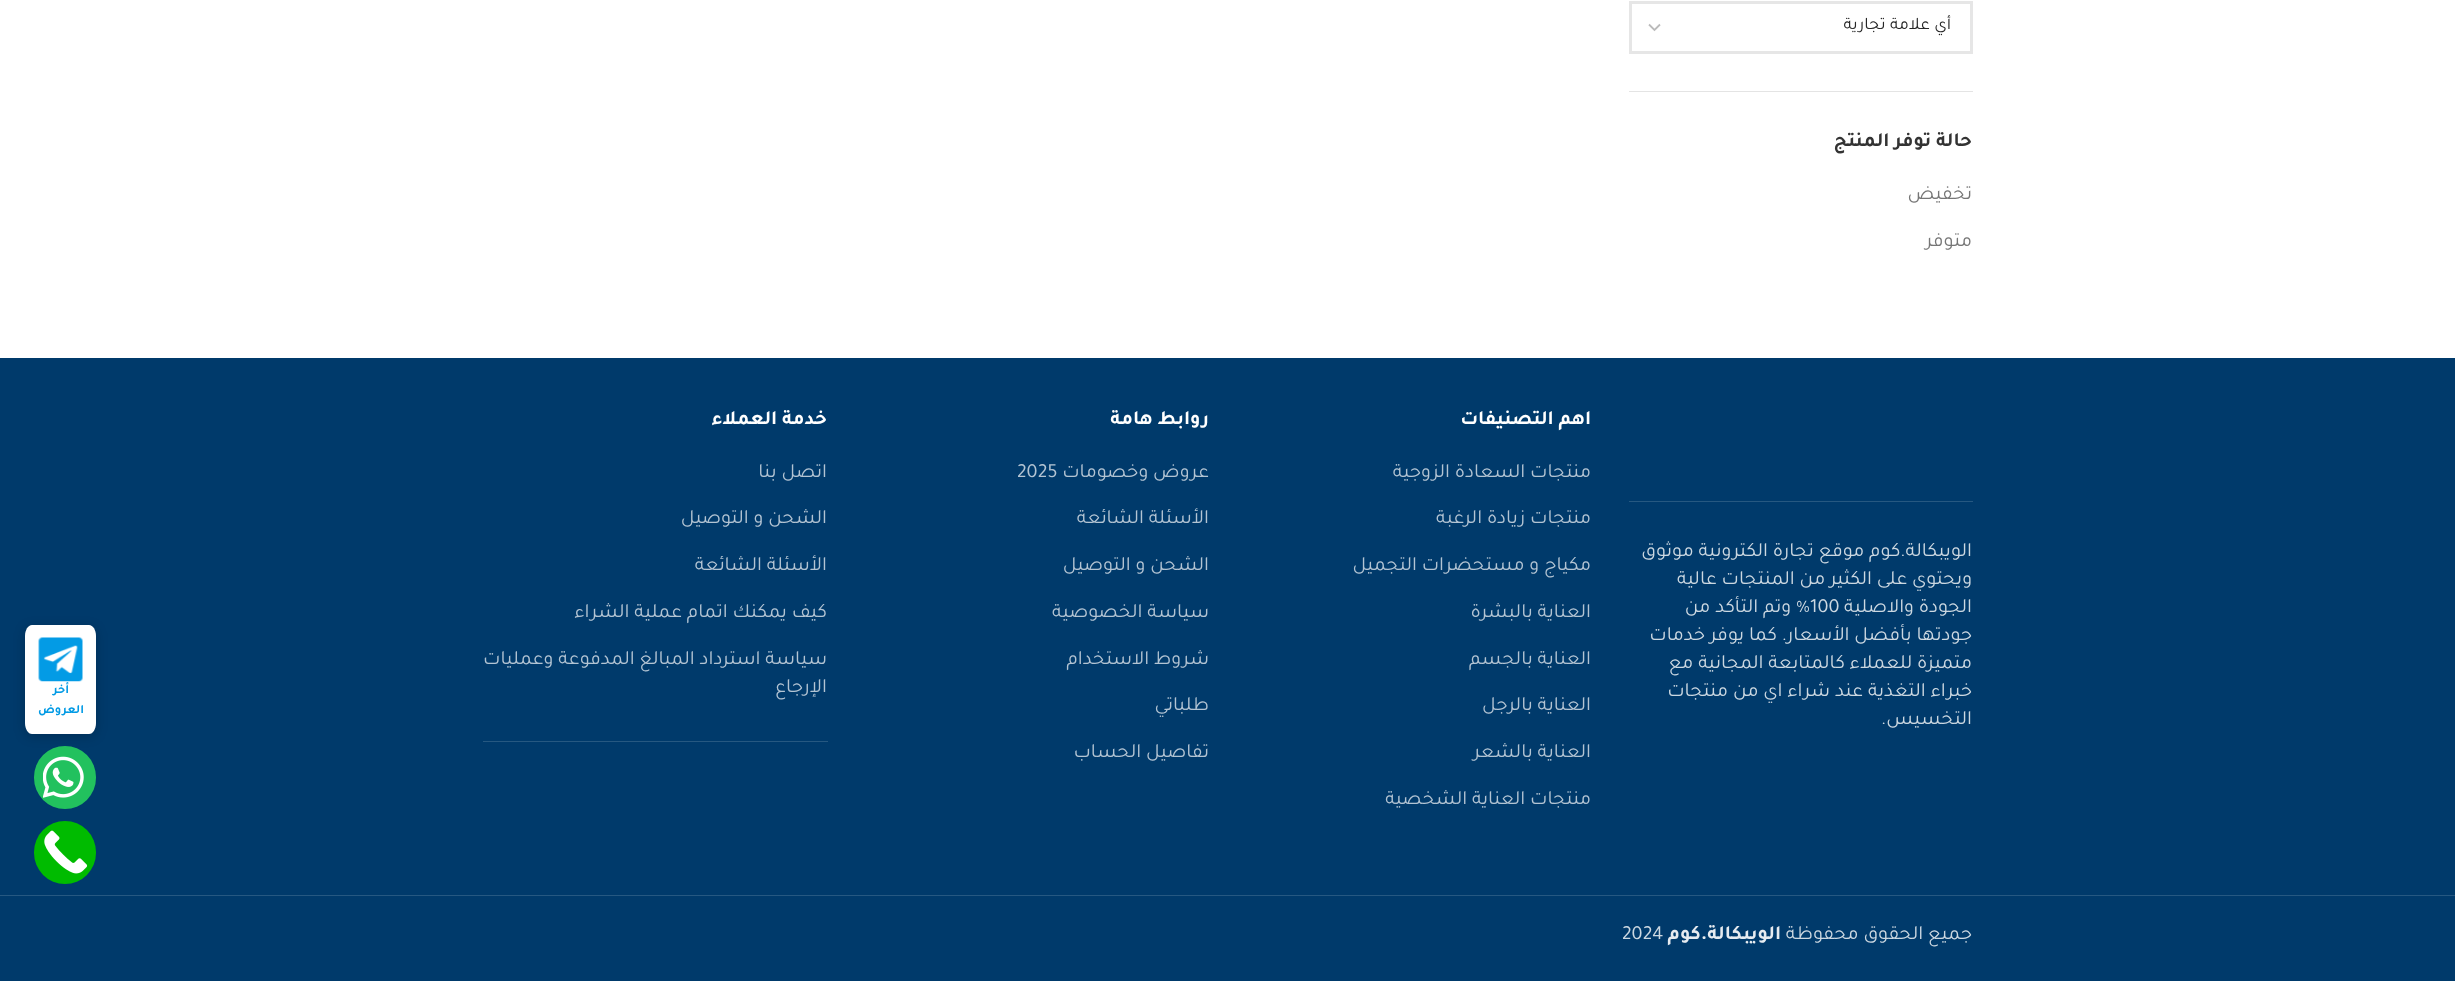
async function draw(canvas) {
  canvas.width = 2455;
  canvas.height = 996;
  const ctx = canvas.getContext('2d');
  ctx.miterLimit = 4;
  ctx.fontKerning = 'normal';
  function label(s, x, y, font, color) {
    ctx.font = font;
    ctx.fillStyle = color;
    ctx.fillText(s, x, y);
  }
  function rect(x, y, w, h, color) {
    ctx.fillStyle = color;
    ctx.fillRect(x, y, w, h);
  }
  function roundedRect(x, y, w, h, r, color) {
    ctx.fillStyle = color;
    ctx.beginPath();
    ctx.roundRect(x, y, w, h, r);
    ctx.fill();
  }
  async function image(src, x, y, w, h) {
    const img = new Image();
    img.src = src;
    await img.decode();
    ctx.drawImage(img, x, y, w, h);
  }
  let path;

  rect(0, 0, 2455, 996, '#fff');
  rect(1629, 91, 344, 1, '#e4e4e4');
  path = new Path2D('M1649 24.5L1654.5 30L1660 24.5');
  ctx.strokeStyle = '#bbb';
  ctx.lineWidth = 1.8;
  ctx.stroke(path);
  ctx.strokeStyle = '#e6e6e6';
  ctx.lineWidth = 3;
  ctx.strokeRect(1630.5, 2.5, 341, 50);
  ctx.direction = 'rtl';
  label('أي علامة تجارية', 1951, 29, '17.5px Tajawal', '#262626');
  label('حالة توفر المنتج', 1972, 146, 'bold 20px Tajawal', '#333');
  label('تخفيض', 1972, 199, '20px Tajawal', '#767676');
  label('متوفر', 1972, 246, '20px Tajawal', '#767676');
  rect(0, 358, 2455, 623, '#003a6b');
  rect(1629, 501, 344, 1, '#265881');
  label('الويبكالة.كوم موقع تجارة الكترونية موثوق', 1972, 556, '20px Tajawal', '#ccd8e1');
  label('ويحتوي على الكثير من المنتجات عالية', 1972, 584, '20px Tajawal', '#ccd8e1');
  label('الجودة والاصلية', 1972, 612, '20px Tajawal', '#ccd8e1');
  ctx.direction = 'ltr';
  label('100', 1810, 612, '20px Tajawal', '#ccd8e1');
  ctx.direction = 'rtl';
  label('% وتم التأكد من', 1810, 612, '20px Tajawal', '#ccd8e1');
  label('جودتها بأفضل الأسعار. كما يوفر خدمات', 1972, 640, '20px Tajawal', '#ccd8e1');
  label('متميزة للعملاء كالمتابعة المجانية مع', 1972, 668, '20px Tajawal', '#ccd8e1');
  label('خبراء التغذية عند شراء اي من منتجات', 1972, 696, '20px Tajawal', '#ccd8e1');
  label('التخسيس.', 1972, 724, '20px Tajawal', '#ccd8e1');
  label('اهم التصنيفات', 1591, 424, 'bold 20px Tajawal', '#fff');
  label('منتجات السعادة الزوجية', 1591, 477, '20px Tajawal', '#b3c4d3');
  label('منتجات زيادة الرغبة', 1591, 523, '20px Tajawal', '#b3c4d3');
  label('مكياج و مستحضرات التجميل', 1591, 570, '20px Tajawal', '#b3c4d3');
  label('العناية بالبشرة', 1591, 617, '20px Tajawal', '#b3c4d3');
  label('العناية بالجسم', 1591, 664, '20px Tajawal', '#b3c4d3');
  label('العناية بالرجل', 1591, 710, '20px Tajawal', '#b3c4d3');
  label('العناية بالشعر', 1591, 757, '20px Tajawal', '#b3c4d3');
  label('منتجات العناية الشخصية', 1591, 804, '20px Tajawal', '#b3c4d3');
  label('روابط هامة', 1209, 424, 'bold 20px Tajawal', '#fff');
  label('عروض وخصومات', 1209, 477, '20px Tajawal', '#b3c4d3');
  ctx.direction = 'ltr';
  label('2025', 1017, 477, '20px Tajawal', '#b3c4d3');
  ctx.direction = 'rtl';
  label('الأسئلة الشائعة', 1209, 523, '20px Tajawal', '#b3c4d3');
  label('الشحن و التوصيل', 1209, 570, '20px Tajawal', '#b3c4d3');
  label('سياسة الخصوصية', 1209, 617, '20px Tajawal', '#b3c4d3');
  label('شروط الاستخدام', 1209, 664, '20px Tajawal', '#b3c4d3');
  label('طلباتي', 1209, 710, '20px Tajawal', '#b3c4d3');
  label('تفاصيل الحساب', 1209, 757, '20px Tajawal', '#b3c4d3');
  rect(483, 741, 345, 1, '#265881');
  label('خدمة العملاء', 827, 424, 'bold 20px Tajawal', '#fff');
  label('اتصل بنا', 827, 477, '20px Tajawal', '#b3c4d3');
  label('الشحن و التوصيل', 827, 523, '20px Tajawal', '#b3c4d3');
  label('الأسئلة الشائعة', 827, 570, '20px Tajawal', '#b3c4d3');
  label('كيف يمكنك اتمام عملية الشراء', 827, 617, '20px Tajawal', '#b3c4d3');
  label('سياسة استرداد المبالغ المدفوعة وعمليات', 827, 664, '20px Tajawal', '#b3c4d3');
  label('الإرجاع', 827, 692, '20px Tajawal', '#b3c4d3');
  rect(0, 895, 2455, 1, '#265881');
  label('جميع الحقوق محفوظة', 1972, 939, '20px Tajawal', '#ccd8e1');
  label('الويبكالة.كوم', 1781, 939, 'bold 20px Tajawal', '#e6ebf0');
  ctx.direction = 'ltr';
  label('2024', 1622, 939, '20px Tajawal', '#ccd8e1');
  ctx.fillStyle = '#00000033';
  ctx.filter = 'blur(6px)';
  ctx.beginPath();
  ctx.roundRect(25, 628, 71, 108, 8);
  ctx.fill();
  ctx.filter = 'none';
  ctx.fillStyle = '#fff';
  path = new Path2D('M32 625H89C93 625 96 630 96 636V723C96 729 93 734 89 734H32C28 734 25 729 25 723V636C25 630 28 625 32 625Z');
  ctx.fill(path);
  await image('assets/img1.png', 38, 637, 45, 45);
  ctx.direction = 'rtl';
  label('أخر', 69, 693, 'bold 12.5px Tajawal', '#039be5');
  label('العروض', 84, 713, 'bold 12.5px Tajawal', '#039be5');
  roundedRect(34, 746, 62, 63, 31, '#22c15e');
  await image('assets/img2.png', 43, 756, 41, 42);
  roundedRect(34, 821, 62, 63, 31, '#0b0');
  await image('assets/img3.png', 44, 830, 44, 44);
}

draw(document.querySelector('canvas'));
